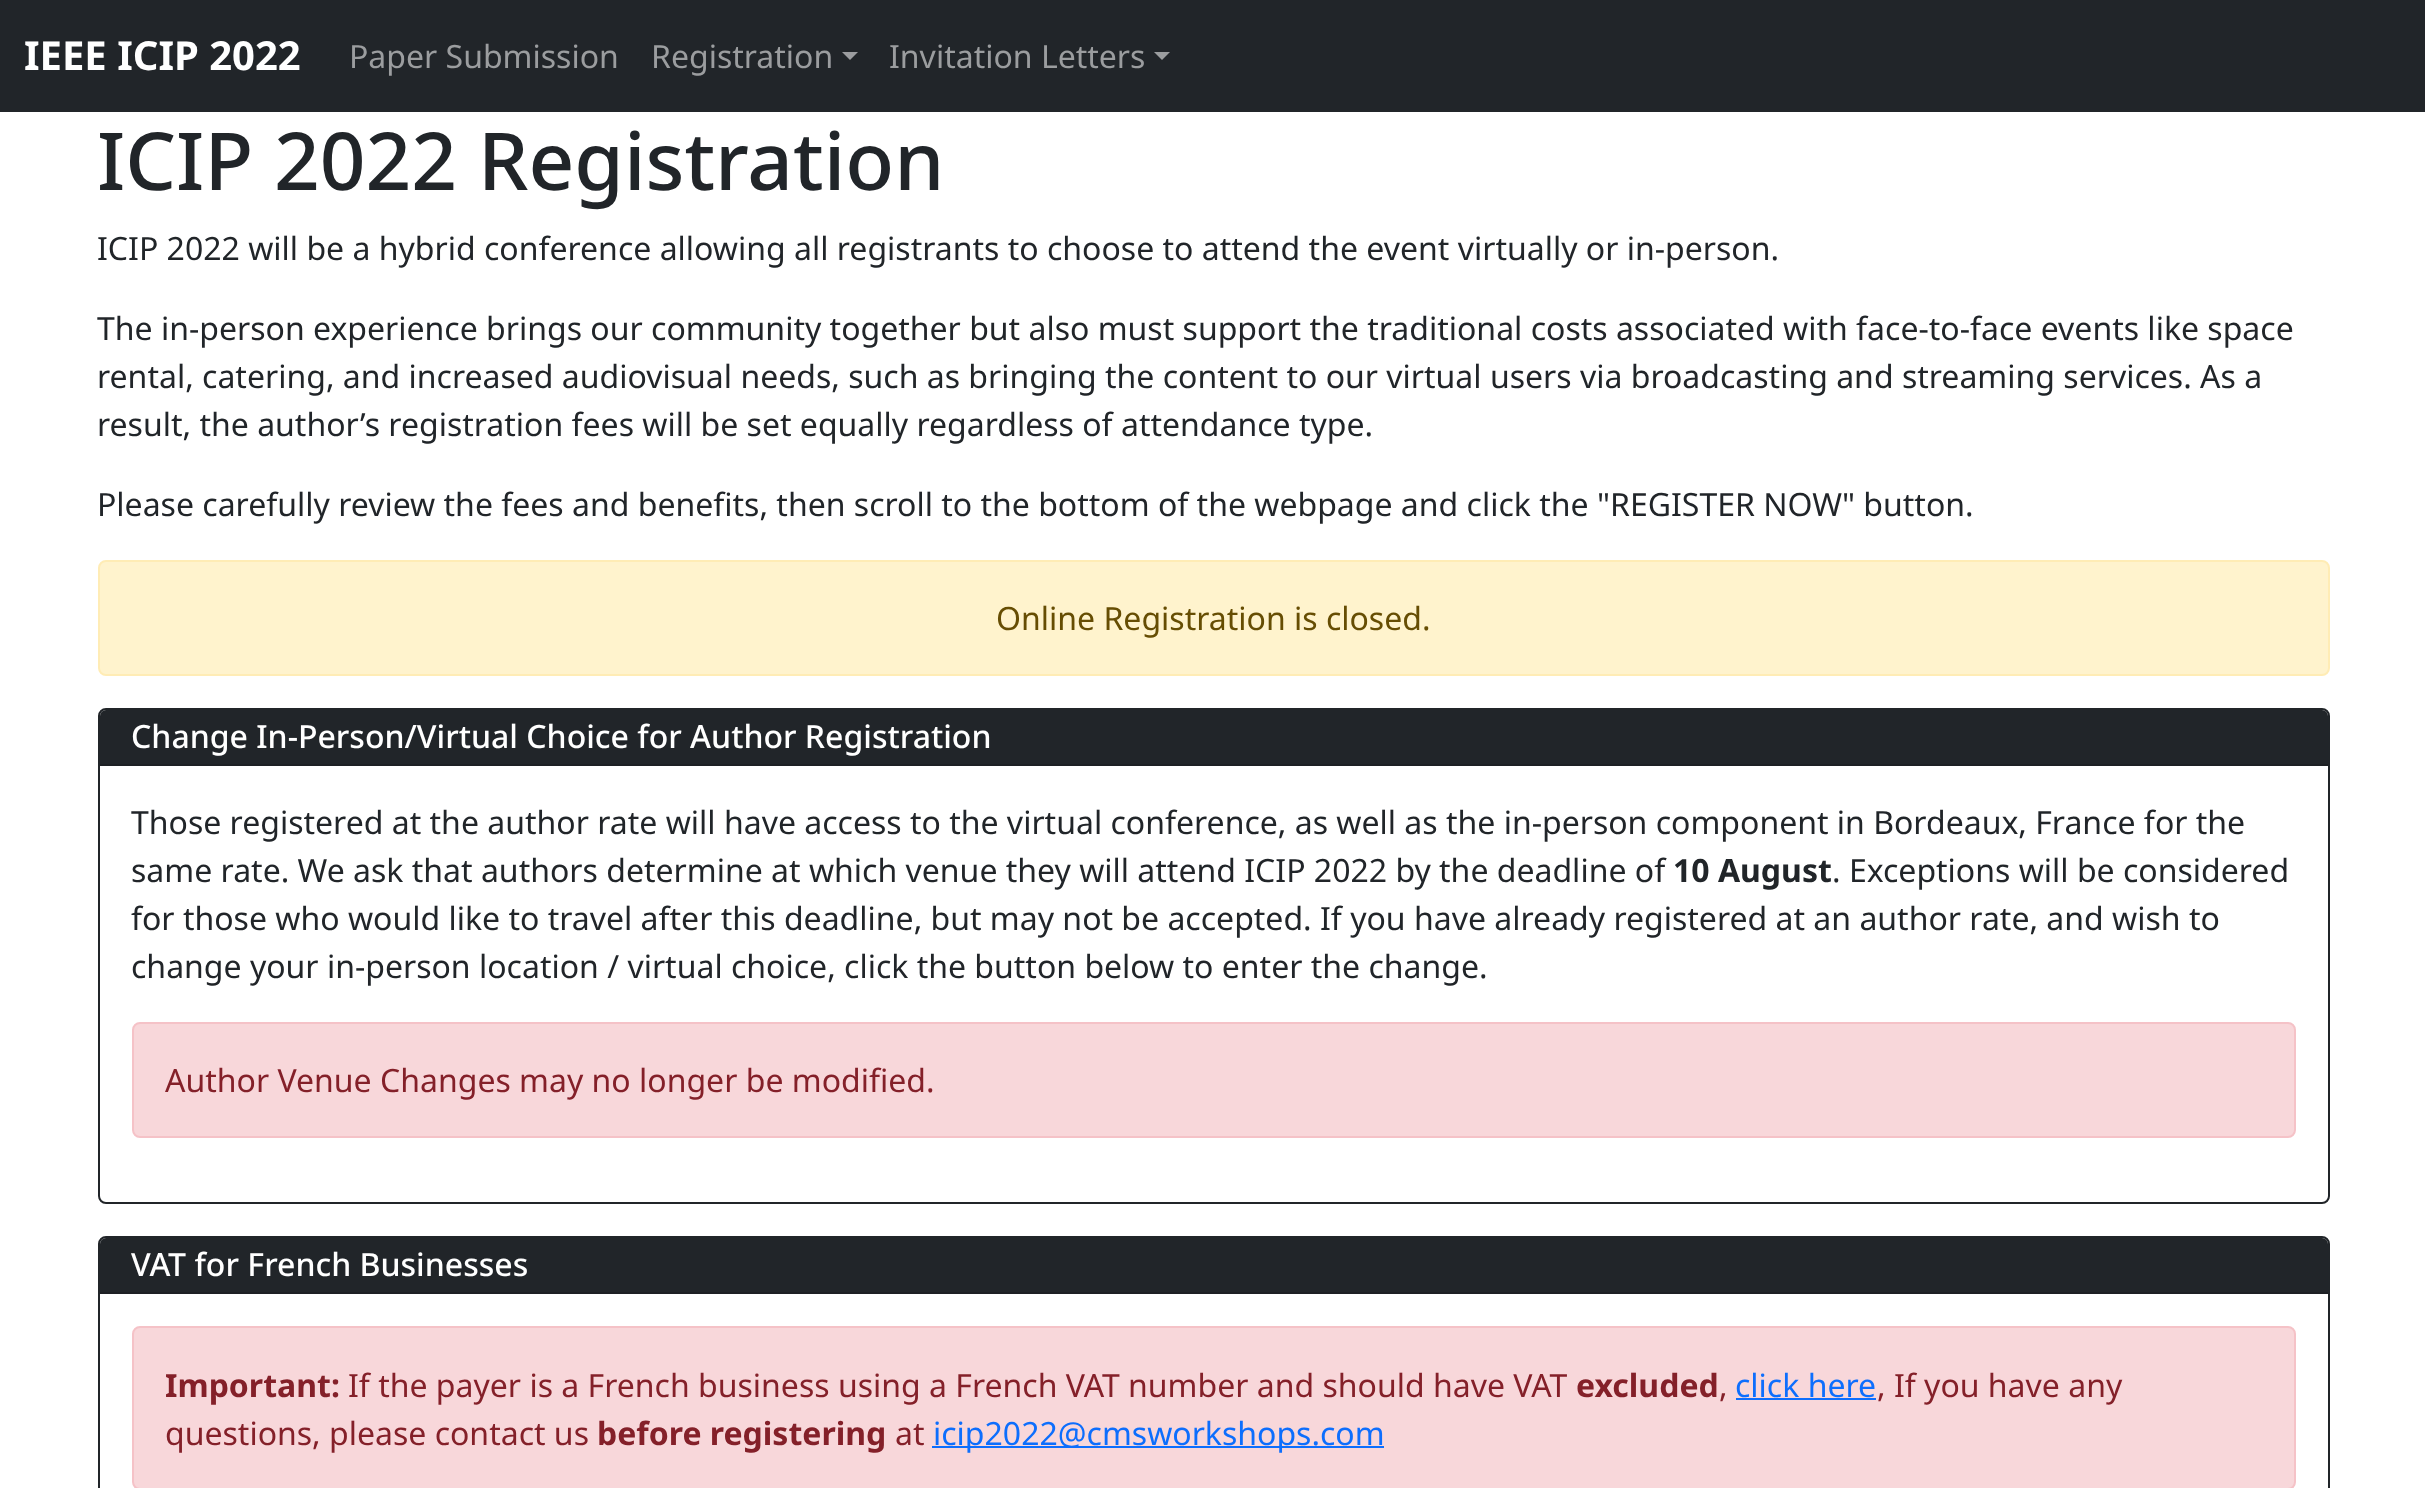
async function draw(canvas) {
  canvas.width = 2425;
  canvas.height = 1488;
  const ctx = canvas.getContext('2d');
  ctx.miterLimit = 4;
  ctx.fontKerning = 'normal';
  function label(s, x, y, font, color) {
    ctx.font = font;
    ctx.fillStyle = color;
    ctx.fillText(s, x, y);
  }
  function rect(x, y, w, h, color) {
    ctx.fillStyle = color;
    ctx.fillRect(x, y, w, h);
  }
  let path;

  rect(0, 0, 2425, 1488, '#fff');
  rect(0, 0, 2425, 112, '#212529');
  label('IEEE ICIP 2022', 24, 70, 'bold 40px Noto Sans', '#fff');
  label('Paper Submission', 349, 68, '32px Noto Sans', '#9b9d9f');
  label('Registration', 651, 68, '32px Noto Sans', '#9b9d9f');
  path = new Path2D('M842 52H858L850 60Z');
  ctx.fill(path);
  label('Invitation Letters', 889, 68, '32px Noto Sans', '#9b9d9f');
  path = new Path2D('M1154 52H1170L1162 60Z');
  ctx.fill(path);
  label('ICIP 2022 Registration', 97, 190, '500 80px Noto Sans', '#212529');
  label('ICIP 2022 will be a hybrid conference allowing all registrants to choose to attend the event virtually or in-person.', 97, 260, '32px Noto Sans', '#212529');
  label('The in-person experience brings our community together but also must support the traditional costs associated with face-to-face events like space', 97, 340, '32px Noto Sans', '#212529');
  label('rental, catering, and increased audiovisual needs, such as bringing the content to our virtual users via broadcasting and streaming services. As a', 97, 388, '32px Noto Sans', '#212529');
  label('result, the author’s registration fees will be set equally regardless of attendance type.', 97, 436, '32px Noto Sans', '#212529');
  label('Please carefully review the fees and benefits, then scroll to the bottom of the webpage and click the "REGISTER NOW" button.', 97, 516, '32px Noto Sans', '#212529');
  ctx.fillStyle = '#fff3cd';
  ctx.beginPath();
  ctx.roundRect(99, 561, 2230, 114, 7);
  ctx.fill();
  ctx.strokeStyle = '#ffecb5';
  ctx.lineWidth = 2;
  ctx.stroke();
  label('Online Registration is closed.', 996, 630, '32px Noto Sans', '#664d03');
  ctx.beginPath();
  ctx.roundRect(99, 709, 2230, 494, 7);
  ctx.strokeStyle = '#212529';
  ctx.stroke();
  ctx.fillStyle = '#212529';
  ctx.beginPath();
  ctx.roundRect(100, 710, 2228, 56, [6, 6, 0, 0]);
  ctx.fill();
  rect(100, 764, 2228, 2, '#1d2024');
  label('Change In-Person/Virtual Choice for Author Registration', 131, 748, '500 32px Noto Sans', '#fff');
  label('Those registered at the author rate will have access to the virtual conference, as well as the in-person component in Bordeaux, France for the', 131, 834, '32px Noto Sans', '#212529');
  label('same rate. We ask that authors determine at which venue they will attend ICIP 2022 by the deadline of', 131, 882, '32px Noto Sans', '#212529');
  label('10 August', 1673, 882, 'bold 32px Noto Sans', '#212529');
  label('. Exceptions will be considered', 1832, 882, '32px Noto Sans', '#212529');
  label('for those who would like to travel after this deadline, but may not be accepted. If you have already registered at an author rate, and wish to', 131, 930, '32px Noto Sans', '#212529');
  label('change your in-person location / virtual choice, click the button below to enter the change.', 131, 978, '32px Noto Sans', '#212529');
  ctx.fillStyle = '#f8d7da';
  ctx.beginPath();
  ctx.roundRect(133, 1023, 2162, 114, 7);
  ctx.fill();
  ctx.strokeStyle = '#f5c2c7';
  ctx.stroke();
  label('Author Venue Changes may no longer be modified.', 165, 1092, '32px Noto Sans', '#842029');
  ctx.beginPath();
  ctx.roundRect(99, 1237, 2230, 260, 7);
  ctx.strokeStyle = '#212529';
  ctx.stroke();
  ctx.fillStyle = '#212529';
  ctx.beginPath();
  ctx.roundRect(100, 1238, 2228, 56, [6, 6, 0, 0]);
  ctx.fill();
  rect(100, 1292, 2228, 2, '#1d2024');
  label('VAT for French Businesses', 131, 1276, '500 32px Noto Sans', '#fff');
  ctx.fillStyle = '#f8d7da';
  ctx.beginPath();
  ctx.roundRect(133, 1327, 2162, 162, 7);
  ctx.fill();
  ctx.strokeStyle = '#f5c2c7';
  ctx.stroke();
  label('Important:', 165, 1397, 'bold 32px Noto Sans', '#842029');
  label('If the payer is a French business using a French VAT number and should have VAT', 348, 1397, '32px Noto Sans', '#842029');
  label('excluded', 1576, 1397, 'bold 32px Noto Sans', '#842029');
  label(',', 1719, 1397, '32px Noto Sans', '#842029');
  label('click here', 1735, 1397, '32px Noto Sans', '#0d6efd');
  rect(1736, 1398, 140, 2, '#0d6efd');
  label(', If you have any', 1877, 1397, '32px Noto Sans', '#842029');
  label('questions, please contact us', 165, 1445, '32px Noto Sans', '#842029');
  label('before registering', 597, 1445, 'bold 32px Noto Sans', '#842029');
  label('at', 895, 1445, '32px Noto Sans', '#842029');
  rect(932, 1446, 452, 2, '#0d6efd');
  label('icip2022@cmsworkshops.com', 933, 1445, '32px Noto Sans', '#0d6efd');
}

draw(document.querySelector('canvas'));
